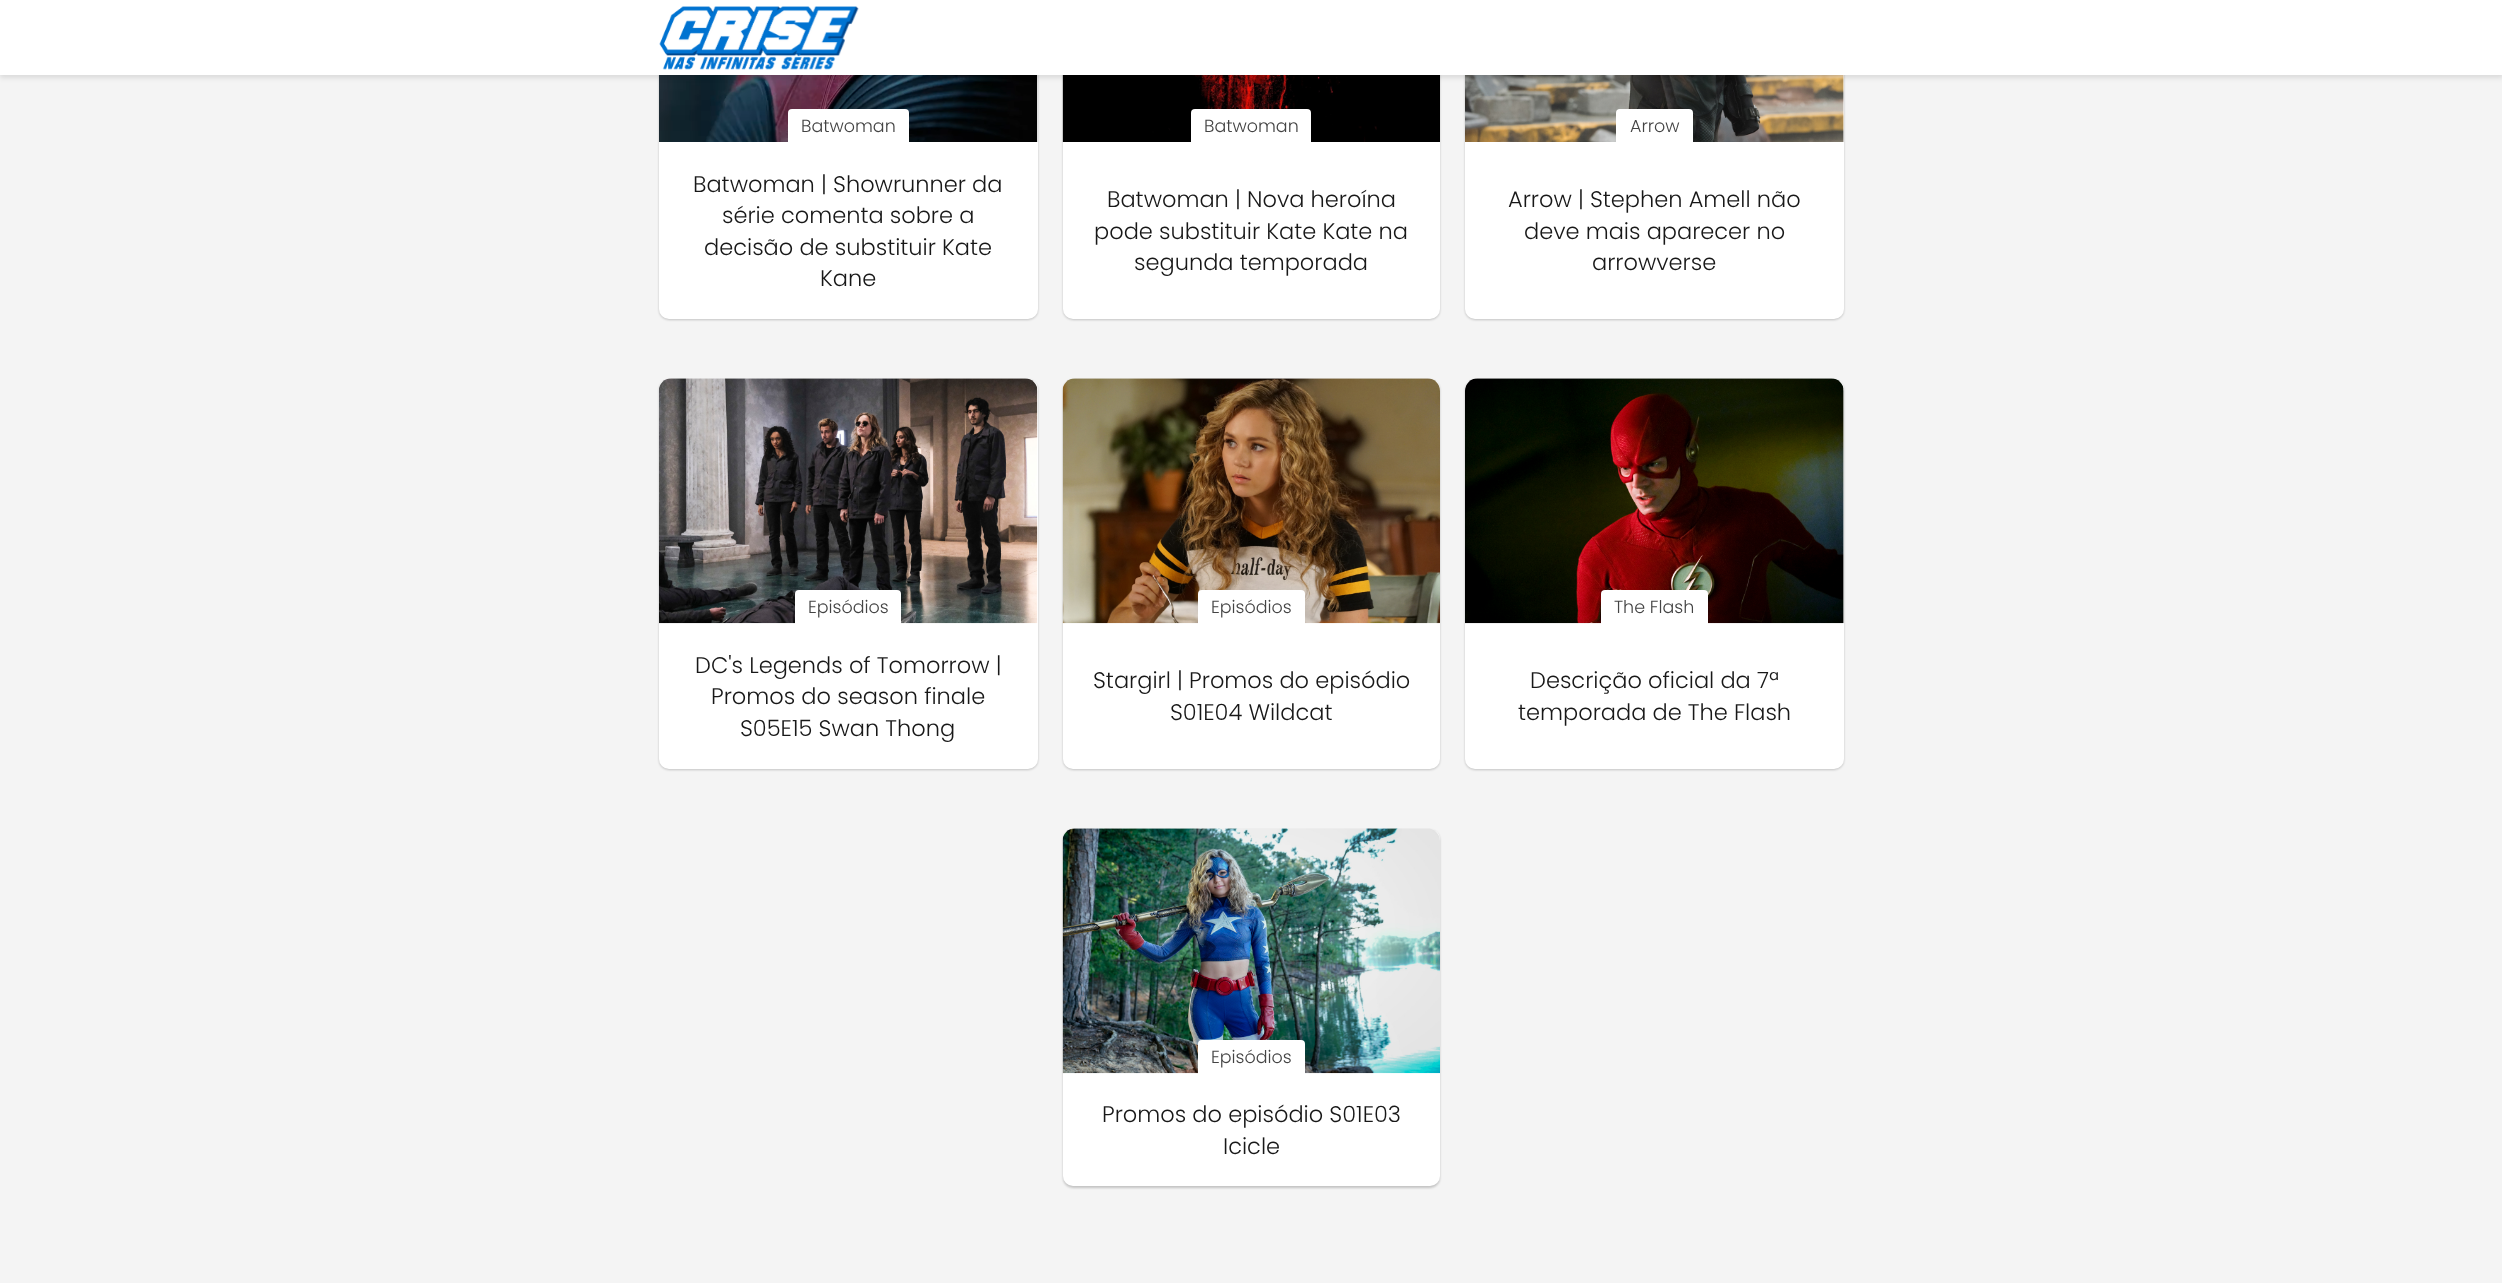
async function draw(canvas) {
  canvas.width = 2502;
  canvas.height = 1283;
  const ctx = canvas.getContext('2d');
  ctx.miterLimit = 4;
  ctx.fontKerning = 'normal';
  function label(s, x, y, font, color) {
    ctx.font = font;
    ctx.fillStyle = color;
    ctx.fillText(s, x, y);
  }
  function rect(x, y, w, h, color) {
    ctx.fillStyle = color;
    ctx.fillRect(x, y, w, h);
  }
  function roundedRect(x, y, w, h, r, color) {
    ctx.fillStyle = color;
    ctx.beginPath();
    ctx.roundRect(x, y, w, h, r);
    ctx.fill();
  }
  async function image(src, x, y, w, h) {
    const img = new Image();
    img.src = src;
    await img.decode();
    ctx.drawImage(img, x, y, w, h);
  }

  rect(0, 0, 2502, 1283, '#f4f4f4');
  ctx.fillStyle = '#00000033';
  ctx.filter = 'blur(1px)';
  ctx.beginPath();
  ctx.roundRect(659, -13, 379, 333, 10);
  ctx.fill();
  ctx.filter = 'none';
  roundedRect(659, -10, 379, 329, 10, '#fff');
  await image('assets/img2.png', 659, 75, 379, 67);
  ctx.fillStyle = '#00000033';
  ctx.filter = 'blur(1px)';
  ctx.beginPath();
  ctx.roundRect(1063, -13, 377, 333, 10);
  ctx.fill();
  ctx.filter = 'none';
  roundedRect(1063, -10, 377, 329, 10, '#fff');
  await image('assets/img3.png', 1062, 75, 378, 67);
  ctx.fillStyle = '#00000033';
  ctx.filter = 'blur(1px)';
  ctx.beginPath();
  ctx.roundRect(1465, -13, 379, 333, 10);
  ctx.fill();
  ctx.filter = 'none';
  roundedRect(1465, -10, 379, 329, 10, '#fff');
  await image('assets/img4.png', 1465, 75, 379, 67);
  ctx.fillStyle = '#0000001a';
  ctx.filter = 'blur(2.5px)';
  ctx.beginPath();
  ctx.rect(0, 3, 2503, 75);
  ctx.fill();
  ctx.filter = 'none';
  rect(0, 0, 2502, 75, '#fff');
  await image('assets/img1.png', 659, 6, 200, 64);
  ctx.beginPath();
  ctx.roundRect(788, 109, 121, 34, [4, 4, 0, 0]);
  ctx.fill();
  label('Batwoman', 801, 132, '300 17.5px Poppins', '#444');
  label('Batwoman | Showrunner da', 693, 192, '300 22.5px Poppins', '#181818');
  label('série comenta sobre a', 722, 223, '300 22.5px Poppins', '#181818');
  label('decisão de substituir Kate', 704, 255, '300 22.5px Poppins', '#181818');
  label('Kane', 820, 286, '300 22.5px Poppins', '#181818');
  ctx.fillStyle = '#fff';
  ctx.beginPath();
  ctx.roundRect(1191, 109, 120, 34, [4, 4, 0, 0]);
  ctx.fill();
  label('Batwoman', 1204, 132, '300 17.5px Poppins', '#444');
  label('Batwoman | Nova heroína', 1107, 207, '300 22.5px Poppins', '#181818');
  label('pode substituir Kate Kate na', 1094, 239, '300 22.5px Poppins', '#181818');
  label('segunda temporada', 1134, 270, '300 22.5px Poppins', '#181818');
  ctx.fillStyle = '#fff';
  ctx.beginPath();
  ctx.roundRect(1616, 109, 77, 34, [4, 4, 0, 0]);
  ctx.fill();
  label('Arrow', 1630, 132, '300 17.5px Poppins', '#444');
  label('Arrow | Stephen Amell não', 1508, 207, '300 22.5px Poppins', '#181818');
  label('deve mais aparecer no', 1524, 239, '300 22.5px Poppins', '#181818');
  label('arrowverse', 1592, 270, '300 22.5px Poppins', '#181818');
  ctx.fillStyle = '#00000033';
  ctx.filter = 'blur(1px)';
  ctx.beginPath();
  ctx.roundRect(659, 380, 379, 390, 10);
  ctx.fill();
  ctx.filter = 'none';
  roundedRect(659, 379, 379, 390, 10, '#fff');
  await image('assets/img5.png', 659, 378, 379, 246);
  ctx.beginPath();
  ctx.roundRect(795, 590, 106, 34, [4, 4, 0, 0]);
  ctx.fill();
  label('Episódios', 808, 613, '300 17.5px Poppins', '#444');
  label('DC\'s Legends of Tomorrow |', 695, 673, '300 22.5px Poppins', '#181818');
  label('Promos do season finale', 711, 704, '300 22.5px Poppins', '#181818');
  label('S05E15 Swan Thong', 740, 736, '300 22.5px Poppins', '#181818');
  ctx.fillStyle = '#00000033';
  ctx.filter = 'blur(1px)';
  ctx.beginPath();
  ctx.roundRect(1063, 380, 377, 390, 10);
  ctx.fill();
  ctx.filter = 'none';
  roundedRect(1063, 379, 377, 390, 10, '#fff');
  await image('assets/img6.png', 1062, 378, 378, 246);
  ctx.beginPath();
  ctx.roundRect(1198, 590, 107, 34, [4, 4, 0, 0]);
  ctx.fill();
  label('Episódios', 1211, 613, '300 17.5px Poppins', '#444');
  label('Stargirl | Promos do episódio', 1093, 688, '300 22.5px Poppins', '#181818');
  label('S01E04 Wildcat', 1170, 720, '300 22.5px Poppins', '#181818');
  ctx.fillStyle = '#00000033';
  ctx.filter = 'blur(1px)';
  ctx.beginPath();
  ctx.roundRect(1465, 380, 379, 390, 10);
  ctx.fill();
  ctx.filter = 'none';
  roundedRect(1465, 379, 379, 390, 10, '#fff');
  await image('assets/img7.png', 1465, 378, 379, 246);
  ctx.beginPath();
  ctx.roundRect(1601, 590, 107, 34, [4, 4, 0, 0]);
  ctx.fill();
  label('The Flash', 1614, 613, '300 17.5px Poppins', '#444');
  label('Descrição oficial da 7ª', 1530, 688, '300 22.5px Poppins', '#181818');
  label('temporada de The Flash', 1518, 720, '300 22.5px Poppins', '#181818');
  ctx.fillStyle = '#00000033';
  ctx.filter = 'blur(1px)';
  ctx.beginPath();
  ctx.roundRect(1063, 830, 377, 358, 10);
  ctx.fill();
  ctx.filter = 'none';
  roundedRect(1063, 829, 377, 357, 10, '#fff');
  await image('assets/img8.png', 1062, 828, 378, 246);
  ctx.beginPath();
  ctx.roundRect(1198, 1040, 107, 34, [4, 4, 0, 0]);
  ctx.fill();
  label('Episódios', 1211, 1063, '300 17.5px Poppins', '#444');
  label('Promos do episódio S01E03', 1102, 1122, '300 22.5px Poppins', '#181818');
  label('Icicle', 1223, 1154, '300 22.5px Poppins', '#181818');
}

draw(document.querySelector('canvas'));
